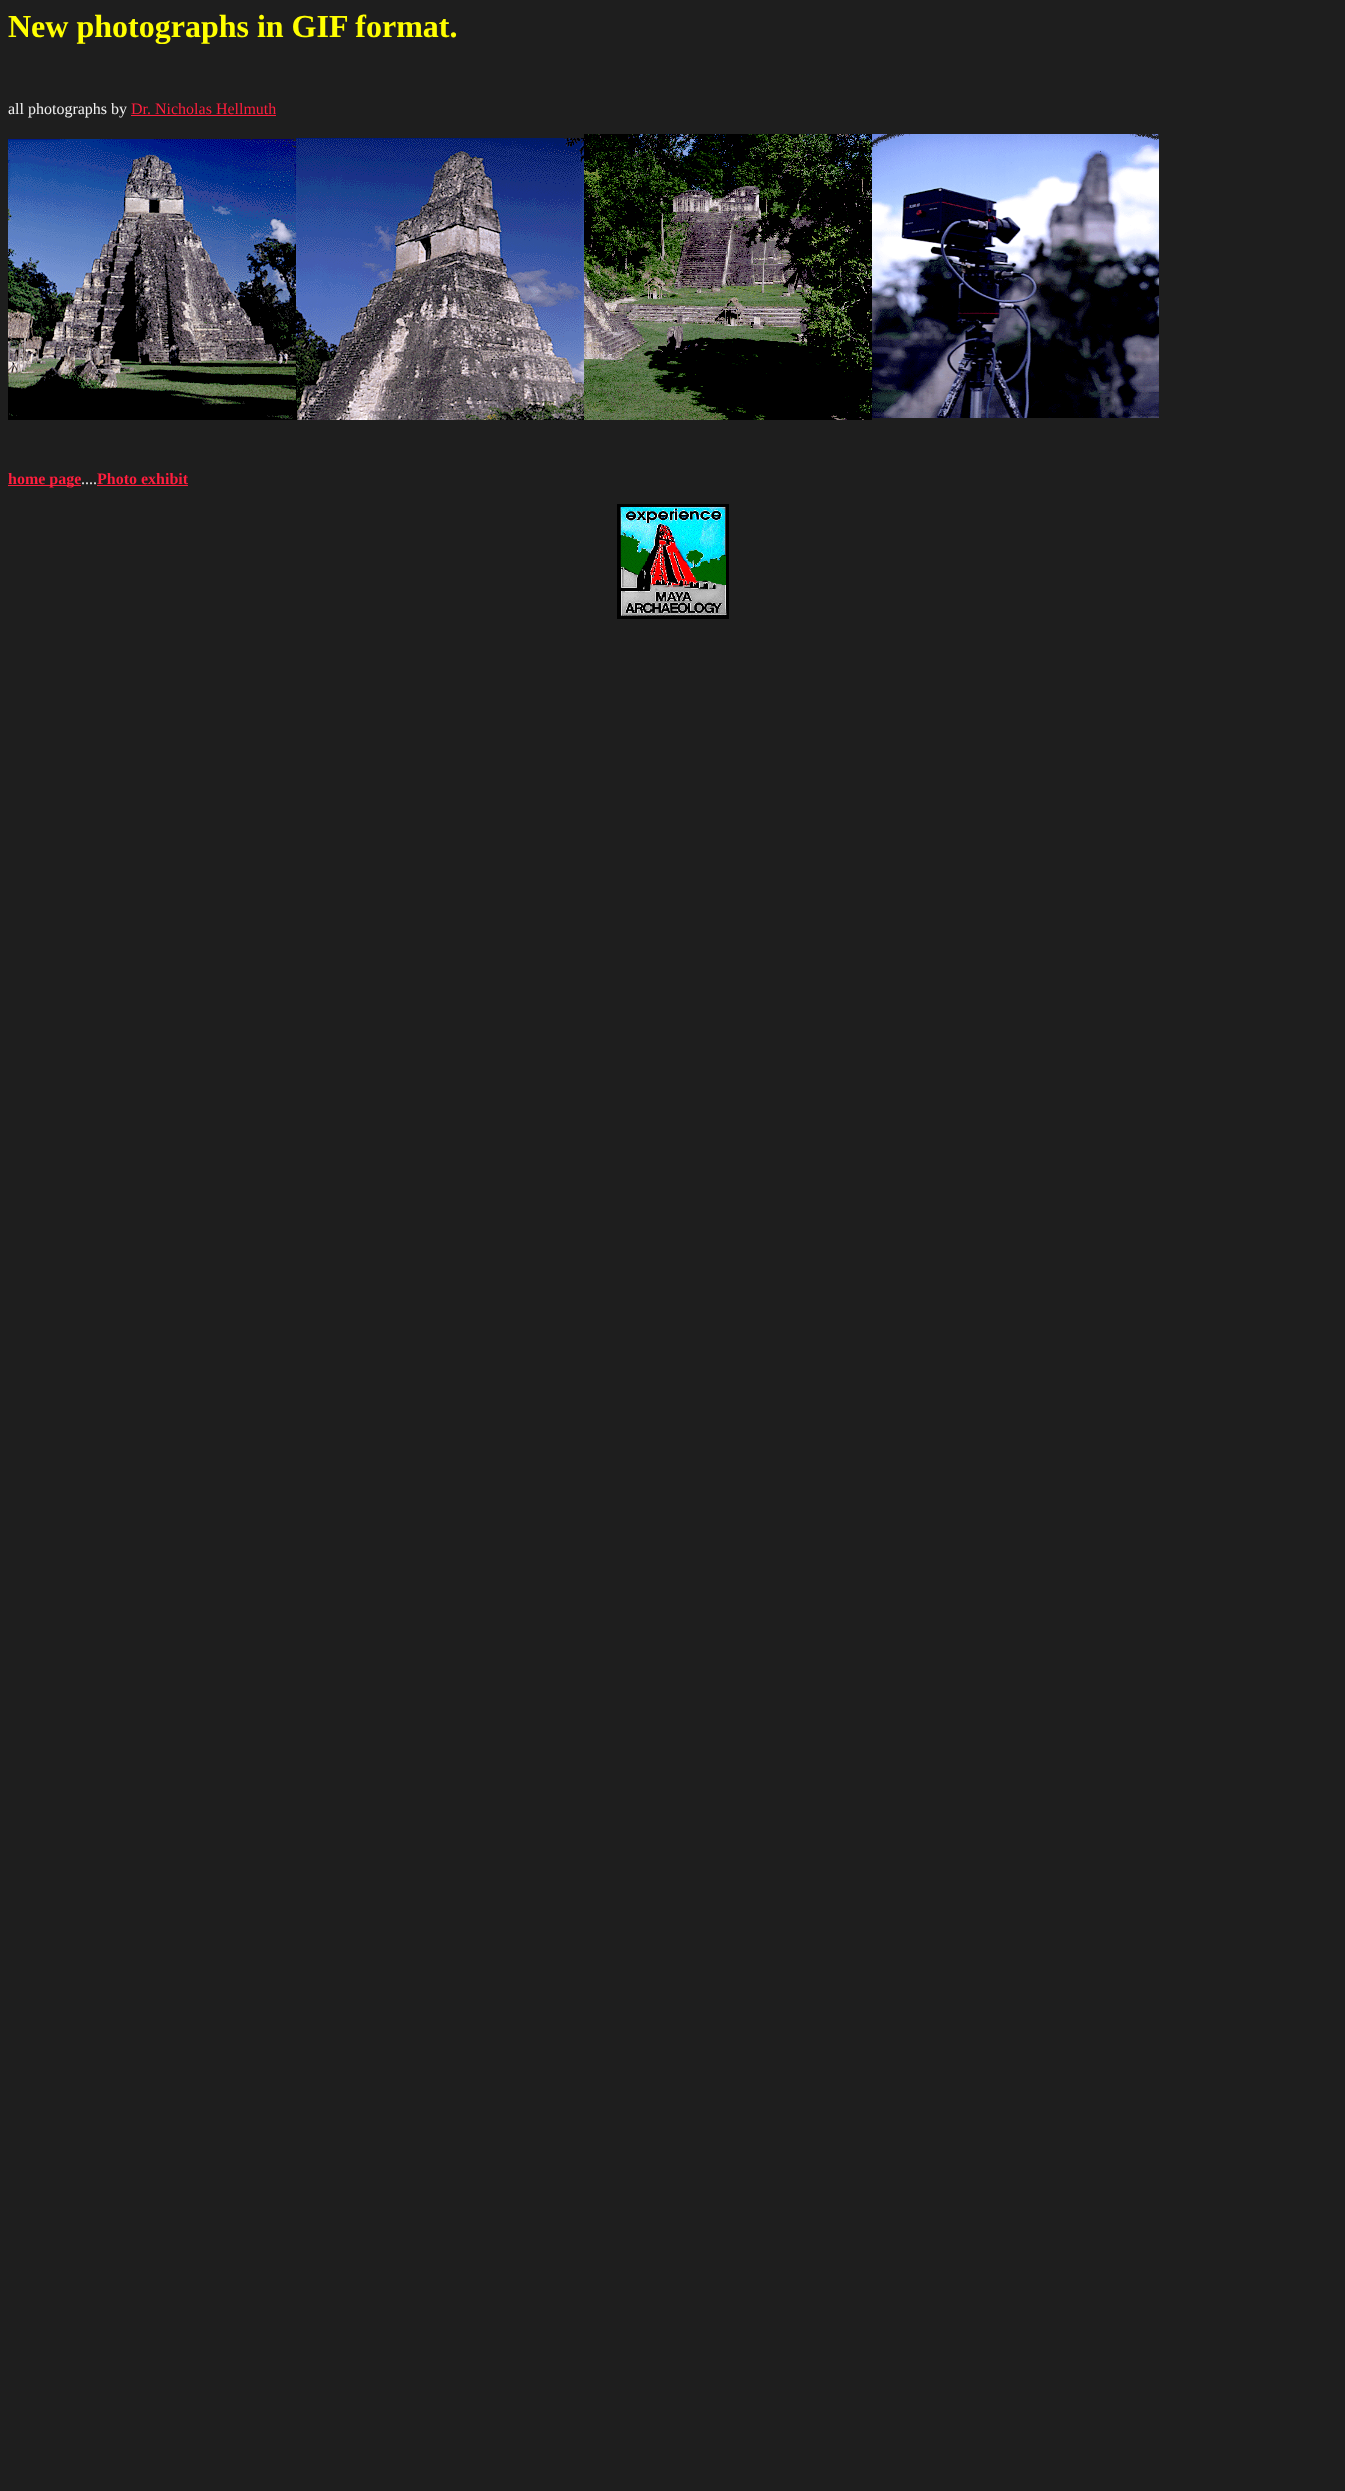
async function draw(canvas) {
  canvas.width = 1345;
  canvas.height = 2491;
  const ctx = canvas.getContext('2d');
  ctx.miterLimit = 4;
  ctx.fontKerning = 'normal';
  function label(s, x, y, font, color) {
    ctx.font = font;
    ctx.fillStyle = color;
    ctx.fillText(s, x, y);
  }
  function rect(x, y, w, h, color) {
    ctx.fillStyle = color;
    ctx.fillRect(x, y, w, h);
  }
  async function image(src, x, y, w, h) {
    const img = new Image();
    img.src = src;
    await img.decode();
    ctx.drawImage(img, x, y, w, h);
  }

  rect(0, 0, 1345, 2491, '#1e1e1e');
  label('New photographs in GIF format.', 8, 37, 'bold 32px Liberation Serif', '#ff0');
  label('all photographs by', 8, 114, '16px Liberation Serif', '#f0f0f0');
  label('Dr. Nicholas Hellmuth', 131, 114, '16px Liberation Serif', '#ff1e3e');
  rect(131, 115, 145, 1, '#ff1e3e');
  await image('assets/img1.png', 8, 139, 288, 281);
  await image('assets/img2.png', 296, 138, 288, 282);
  await image('assets/img3.png', 584, 134, 288, 286);
  await image('assets/img4.png', 872, 134, 287, 284);
  rect(8, 485, 73, 1, '#ff1e3e');
  label('home page', 8, 484, 'bold 16px Liberation Serif', '#ff1e3e');
  label('....', 81, 484, '16px Liberation Serif', '#f0f0f0');
  label('Photo exhibit', 97, 484, 'bold 16px Liberation Serif', '#ff1e3e');
  rect(97, 485, 91, 1, '#ff1e3e');
  await image('assets/img5.png', 617, 504, 112, 115);
}

draw(document.querySelector('canvas'));
